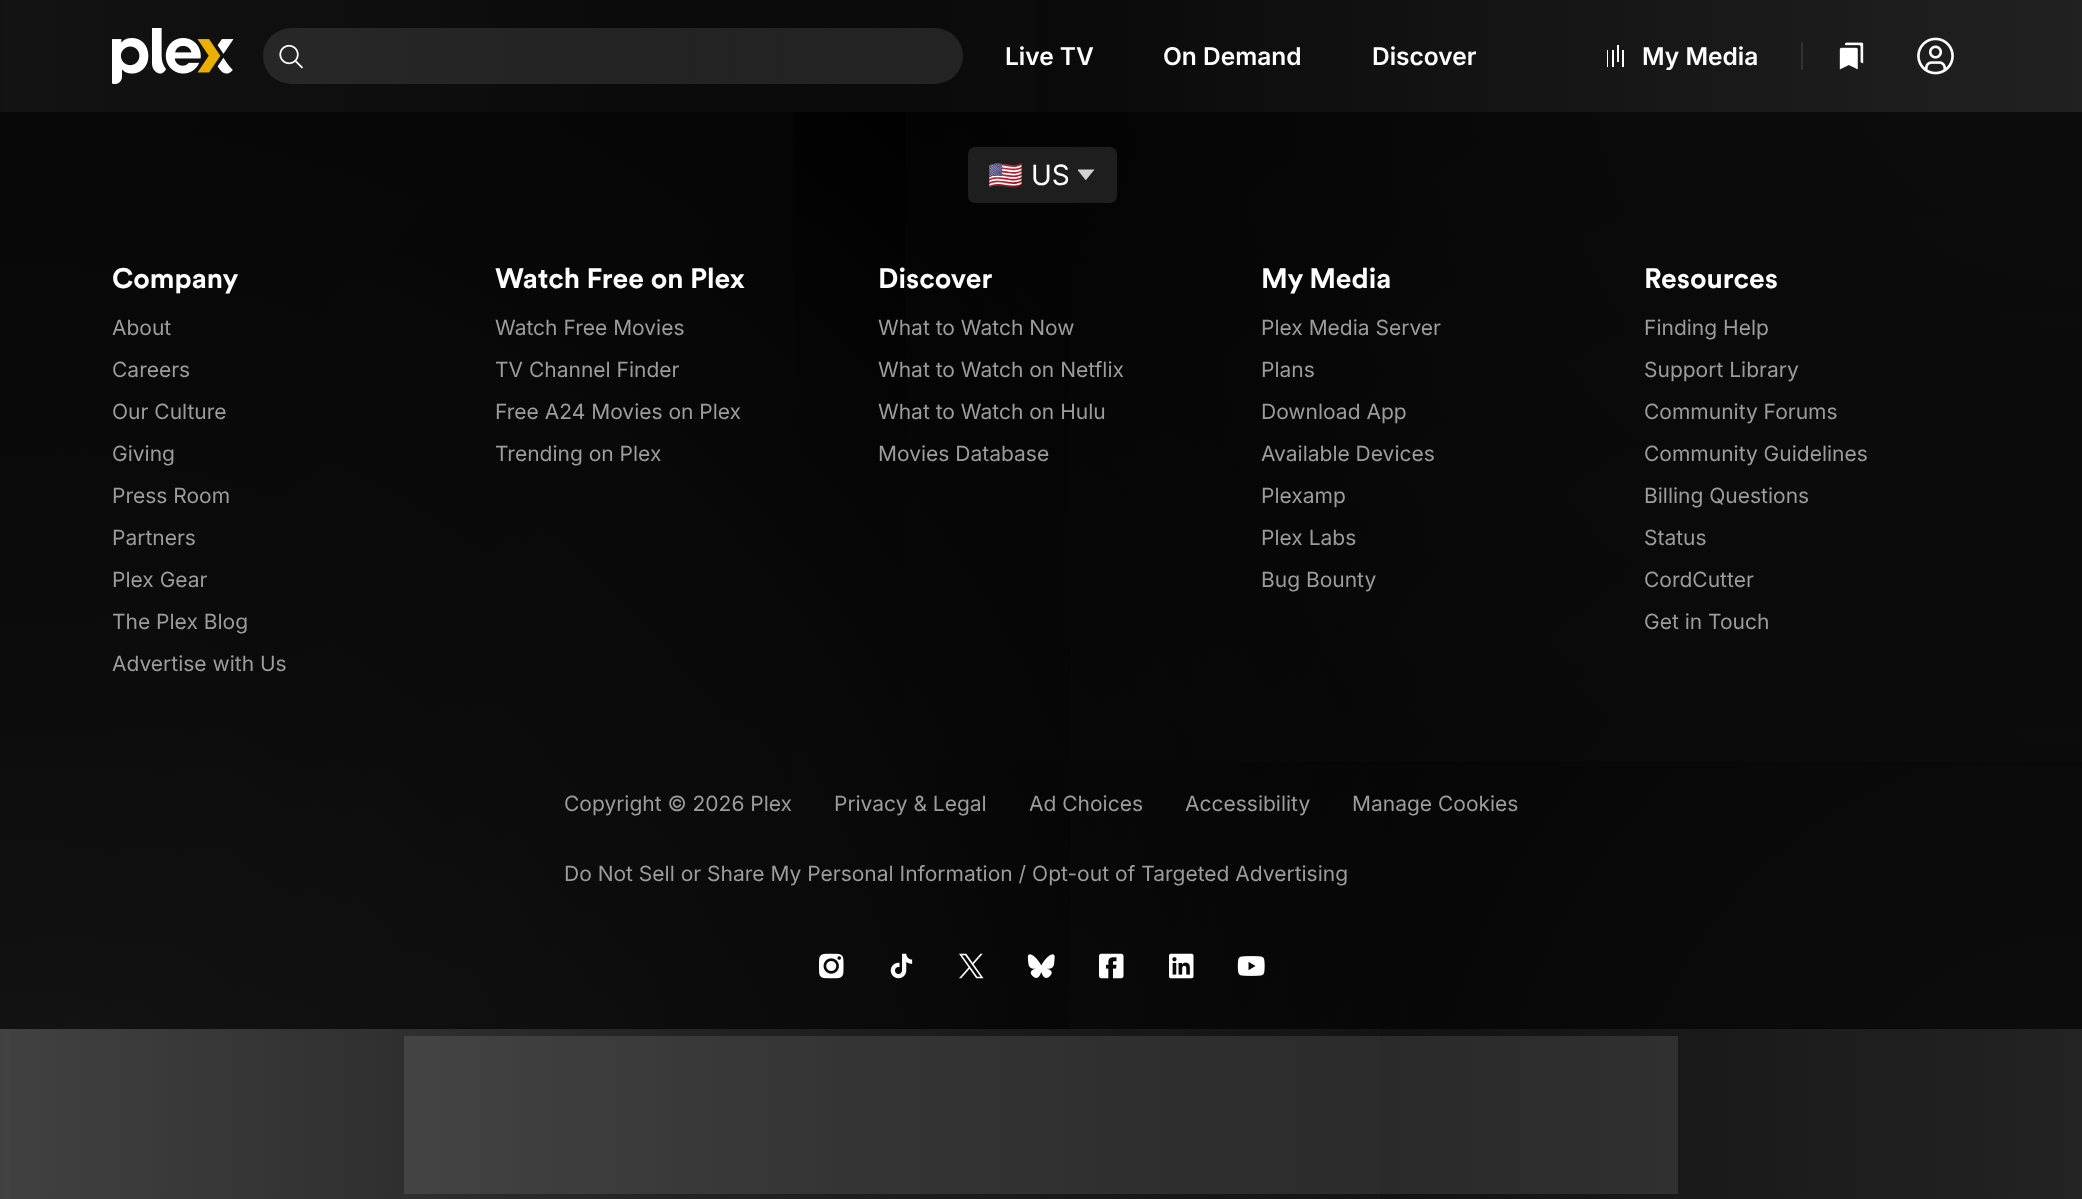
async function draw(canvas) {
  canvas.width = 2082;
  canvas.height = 1199;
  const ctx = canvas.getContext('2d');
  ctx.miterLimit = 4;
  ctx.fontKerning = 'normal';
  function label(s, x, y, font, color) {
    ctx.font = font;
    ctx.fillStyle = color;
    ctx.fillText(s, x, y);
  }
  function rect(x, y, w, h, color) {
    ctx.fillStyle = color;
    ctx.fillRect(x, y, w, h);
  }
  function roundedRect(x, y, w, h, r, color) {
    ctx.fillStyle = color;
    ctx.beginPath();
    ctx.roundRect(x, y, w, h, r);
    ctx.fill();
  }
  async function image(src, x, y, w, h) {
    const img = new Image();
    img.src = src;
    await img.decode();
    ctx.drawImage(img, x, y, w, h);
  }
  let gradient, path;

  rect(0, 0, 2082, 1199, '#fff');
  gradient = ctx.createLinearGradient(0, 56, 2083, 56);
  gradient.addColorStop(0.3, '#000');
  gradient.addColorStop(1, '#212121');
  ctx.fillStyle = gradient;
  ctx.fillRect(9, 0, 2073, 112);
  gradient = ctx.createLinearGradient(0, 56, 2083, 56);
  gradient.addColorStop(0, '#131313');
  gradient.addColorStop(0.7, '#13131300');
  ctx.fillStyle = gradient;
  ctx.fillRect(0, 0, 1036, 112);
  await image('assets/img1.png', 112, 28, 122, 56);
  roundedRect(263, 28, 700, 56, 28, '#ffffff1a');
  await image('assets/img2.png', 279, 44, 24, 25);
  label('Live TV', 1005, 65, '600 24.5px Inter', '#fff');
  label('On Demand', 1163, 65, '600 24.5px Inter', '#fff');
  label('Discover', 1372, 65, '600 24.5px Inter', '#fff');
  rect(1617, 45, 2, 17, '#fff');
  rect(1607, 50, 1, 17, '#fff');
  rect(1622, 50, 2, 17, '#fff');
  rect(1612, 50, 2, 17, '#fff');
  label('My Media', 1642, 65, '600 24.5px Inter', '#fff');
  rect(1801, 42, 2, 28, '#323232');
  await image('assets/img3.png', 1839, 42, 25, 28);
  await image('assets/img4.png', 1917, 37, 37, 38);
  gradient = ctx.createRadialGradient(0, 1201, 0, 0, 1201, 2083);
  gradient.addColorStop(0, '#1a1a1a');
  gradient.addColorStop(0.7, '#000');
  ctx.fillStyle = gradient;
  ctx.fillRect(0, 112, 2082, 917);
  gradient = ctx.createRadialGradient(2083, 1201, 0, 2083, 1201, 2083);
  gradient.addColorStop(0, '#0e0e0e');
  gradient.addColorStop(0.7, '#0e0e0e00');
  ctx.fillStyle = gradient;
  ctx.fillRect(1070, 112, 1012, 917);
  gradient = ctx.createRadialGradient(2083, 0, 0, 2083, 0, 2083);
  gradient.addColorStop(0, '#0d0d0d');
  gradient.addColorStop(0.7, '#0d0d0d00');
  ctx.fillStyle = gradient;
  ctx.fillRect(905, 112, 1177, 649);
  gradient = ctx.createRadialGradient(0, 0, 0, 0, 0, 2083);
  gradient.addColorStop(0, '#080808');
  gradient.addColorStop(0.7, '#08080800');
  ctx.fillStyle = gradient;
  ctx.fillRect(0, 112, 794, 917);
  roundedRect(968, 147, 149, 56, 7, '#1e1e1e');
  ctx.save();
  ctx.beginPath();
  ctx.rect(989, 154, 86, 42);
  ctx.clip();
  label('🇺🇸', 988, 185, '28px Noto Color Emoji', '#fff');
  ctx.restore();
  label('US', 1031, 185, '28px Inter', '#fff');
  ctx.fillStyle = '#d2d2d2';
  path = new Path2D('M1094.5 169.5L1086 180H1085.5L1078 170.5V169.5Z');
  ctx.fill(path);
  label('Company', 112, 288, 'bold 28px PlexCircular', '#fff');
  label('About', 112, 335, '21px Inter', '#9c9c9c');
  label('Careers', 112, 377, '21px Inter', '#9c9c9c');
  label('Our Culture', 112, 419, '21px Inter', '#9c9c9c');
  label('Giving', 112, 461, '21px Inter', '#9c9c9c');
  label('Press Room', 112, 503, '21px Inter', '#9c9c9c');
  label('Partners', 112, 545, '21px Inter', '#9c9c9c');
  label('Plex Gear', 112, 587, '21px Inter', '#9c9c9c');
  label('The Plex Blog', 112, 629, '21px Inter', '#9c9c9c');
  label('Advertise with Us', 112, 671, '21px Inter', '#9c9c9c');
  label('Watch Free on Plex', 495, 288, 'bold 28px PlexCircular', '#fff');
  label('Watch Free Movies', 495, 335, '21px Inter', '#9c9c9c');
  label('TV Channel Finder', 495, 377, '21px Inter', '#9c9c9c');
  label('Free A24 Movies on Plex', 495, 419, '21px Inter', '#9c9c9c');
  label('Trending on Plex', 495, 461, '21px Inter', '#9c9c9c');
  label('Discover', 878, 288, 'bold 28px PlexCircular', '#fff');
  label('What to Watch Now', 878, 335, '21px Inter', '#9c9c9c');
  label('What to Watch on Netflix', 878, 377, '21px Inter', '#9c9c9c');
  label('What to Watch on Hulu', 878, 419, '21px Inter', '#9c9c9c');
  label('Movies Database', 878, 461, '21px Inter', '#9c9c9c');
  label('My Media', 1261, 288, 'bold 28px PlexCircular', '#fff');
  label('Plex Media Server', 1261, 335, '21px Inter', '#9c9c9c');
  label('Plans', 1261, 377, '21px Inter', '#9c9c9c');
  label('Download App', 1261, 419, '21px Inter', '#9c9c9c');
  label('Available Devices', 1261, 461, '21px Inter', '#9c9c9c');
  label('Plexamp', 1261, 503, '21px Inter', '#9c9c9c');
  label('Plex Labs', 1261, 545, '21px Inter', '#9c9c9c');
  label('Bug Bounty', 1261, 587, '21px Inter', '#9c9c9c');
  label('Resources', 1644, 288, 'bold 28px PlexCircular', '#fff');
  label('Finding Help', 1644, 335, '21px Inter', '#9c9c9c');
  label('Support Library', 1644, 377, '21px Inter', '#9c9c9c');
  label('Community Forums', 1644, 419, '21px Inter', '#9c9c9c');
  label('Community Guidelines', 1644, 461, '21px Inter', '#9c9c9c');
  label('Billing Questions', 1644, 503, '21px Inter', '#9c9c9c');
  label('Status', 1644, 545, '21px Inter', '#9c9c9c');
  label('CordCutter', 1644, 587, '21px Inter', '#9c9c9c');
  label('Get in Touch', 1644, 629, '21px Inter', '#9c9c9c');
  label('Copyright © 2026 Plex', 564, 811, '21px Inter', '#9c9c9c');
  label('Privacy & Legal', 834, 811, '21px Inter', '#9c9c9c');
  label('Ad Choices', 1029, 811, '21px Inter', '#9c9c9c');
  label('Accessibility', 1185, 811, '21px Inter', '#9c9c9c');
  label('Manage Cookies', 1352, 811, '21px Inter', '#9c9c9c');
  label('Do Not Sell or Share My Personal Information / Opt-out of Targeted Advertising', 564, 881, '21px Inter', '#9c9c9c');
  await image('assets/img5.png', 819, 953, 25, 26);
  await image('assets/img6.png', 890, 953, 23, 26);
  await image('assets/img7.png', 959, 953, 25, 26);
  await image('assets/img8.png', 1027, 954, 28, 24);
  await image('assets/img9.png', 1099, 953, 25, 26);
  await image('assets/img10.png', 1169, 953, 25, 26);
  await image('assets/img11.png', 1237, 956, 28, 20);
  gradient = ctx.createLinearGradient(0, 1115, 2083, 1115);
  gradient.addColorStop(0.3, '#000');
  gradient.addColorStop(1, '#232323');
  ctx.fillStyle = gradient;
  ctx.fillRect(9, 1029, 2073, 170);
  gradient = ctx.createLinearGradient(0, 1115, 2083, 1115);
  gradient.addColorStop(0, '#414141');
  gradient.addColorStop(0.7, '#41414100');
  ctx.fillStyle = gradient;
  ctx.fillRect(0, 1029, 1380, 170);
  rect(404, 1036, 1274, 158, '#ffffff1a');
}

draw(document.querySelector('canvas'));
